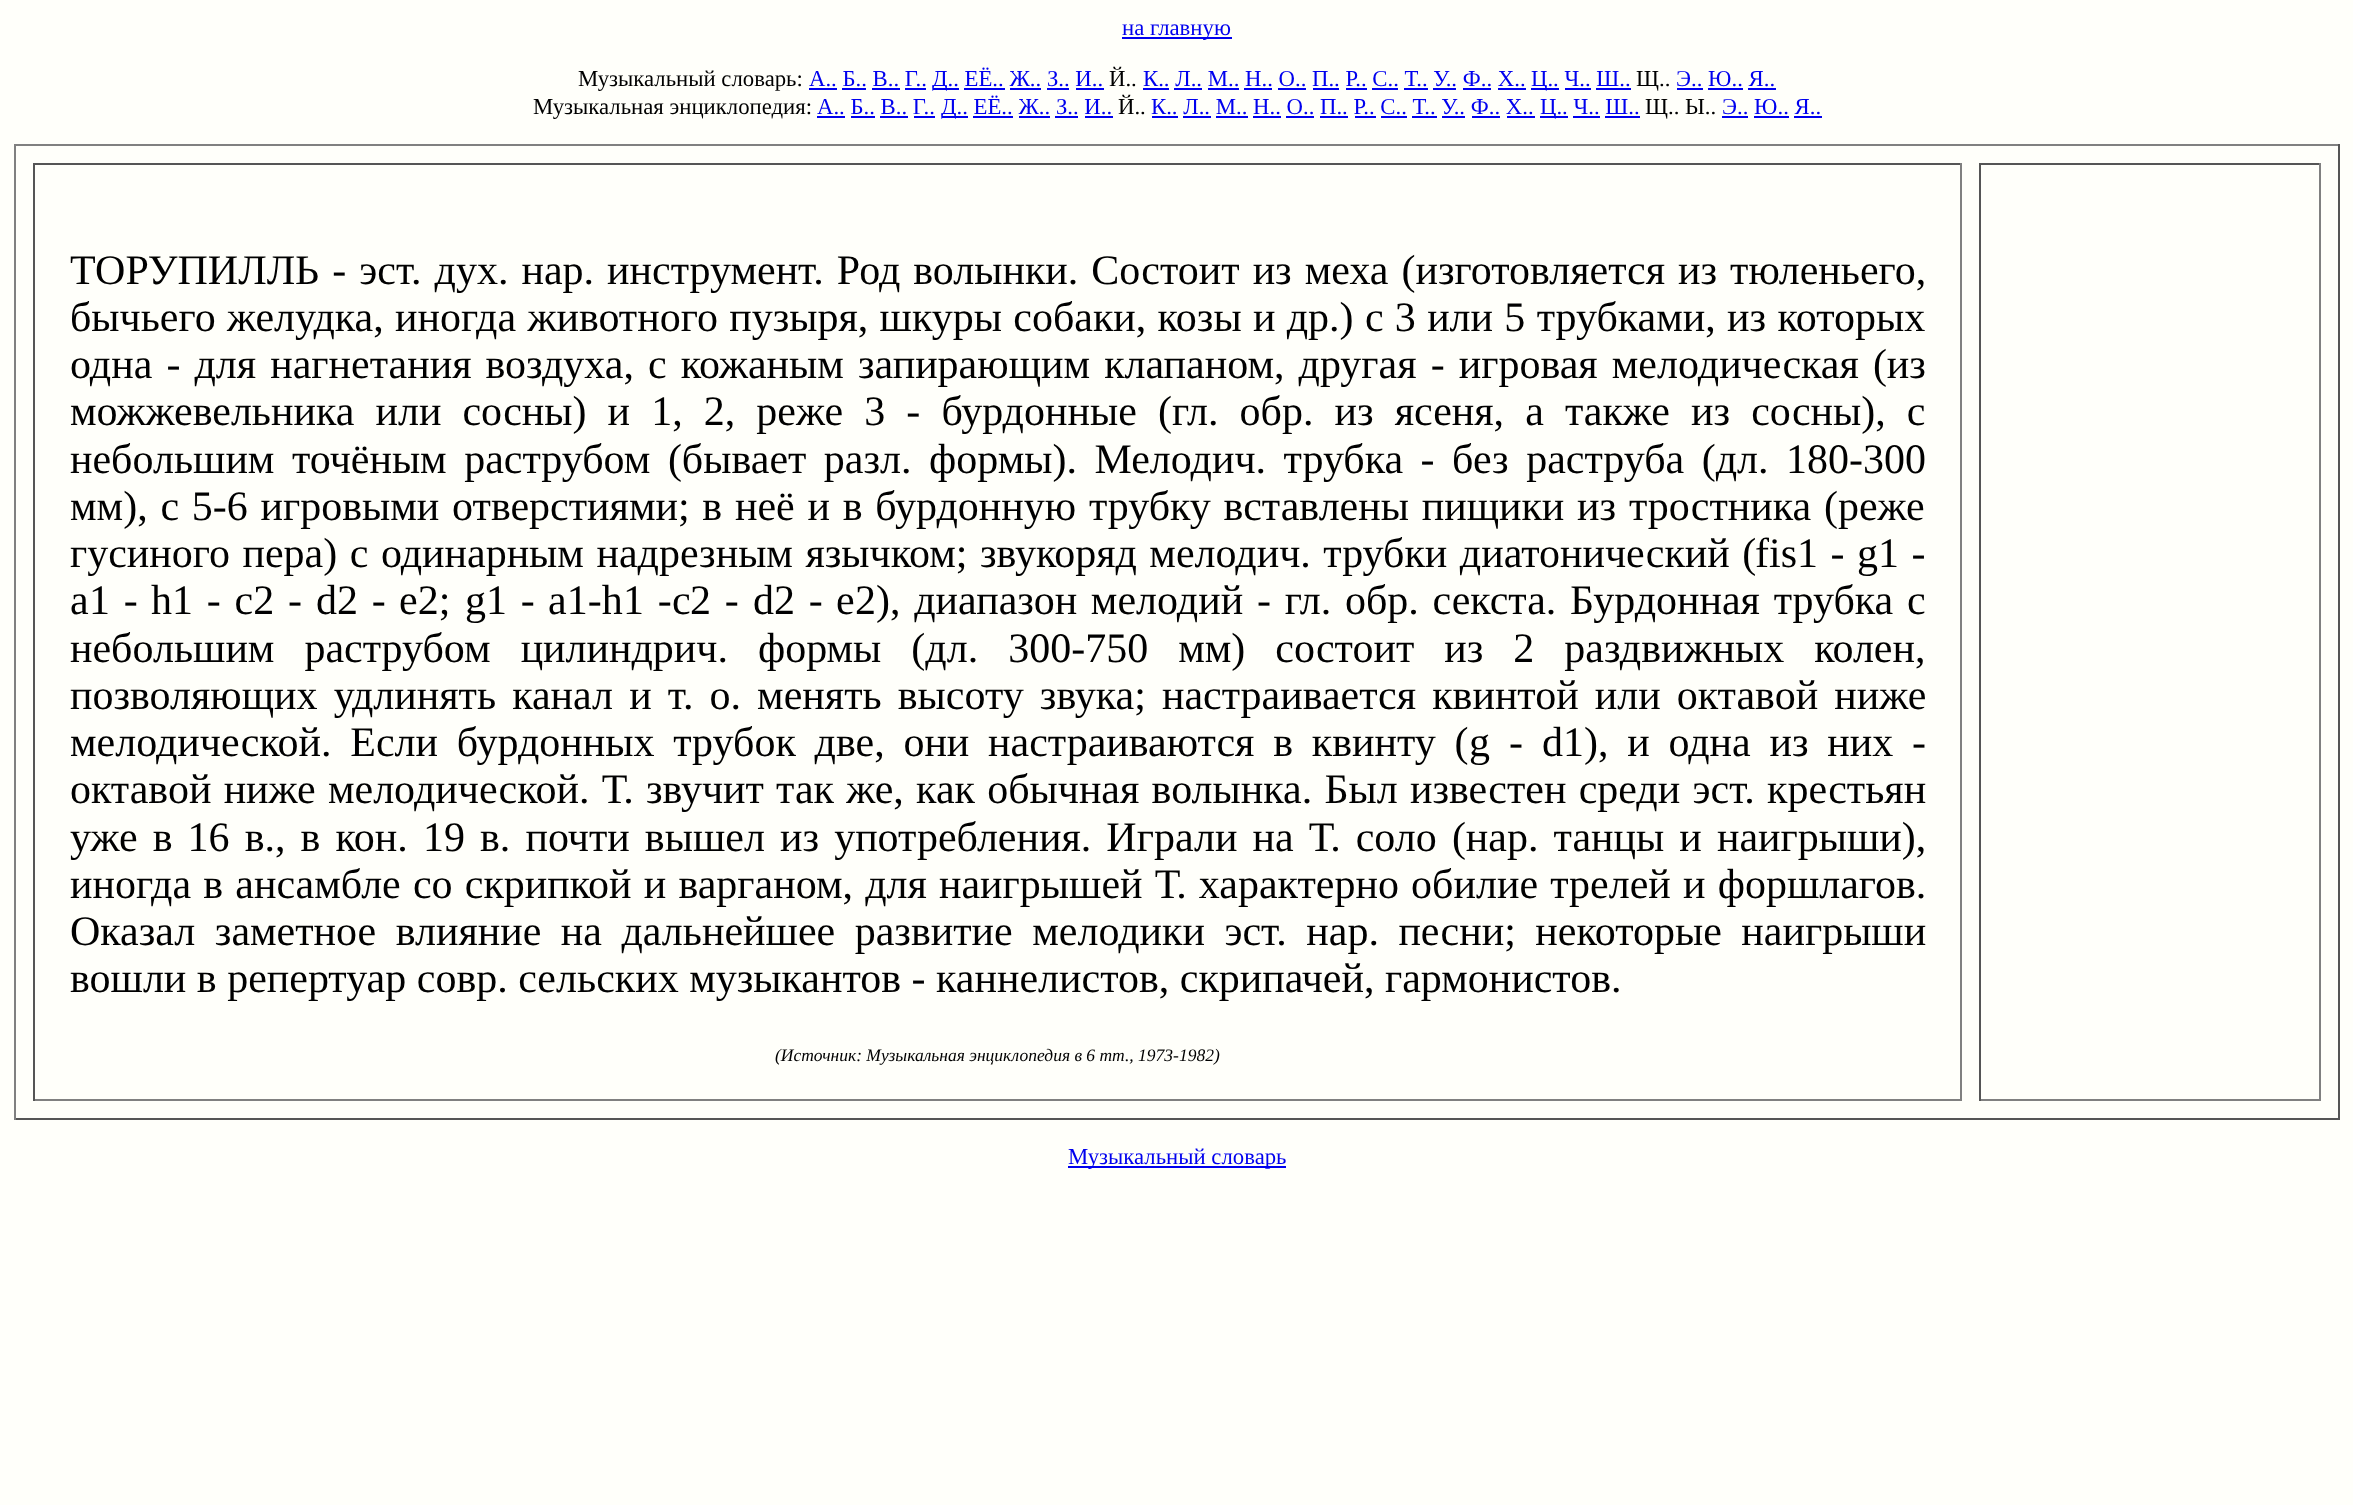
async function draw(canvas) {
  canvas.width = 2353;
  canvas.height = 1505;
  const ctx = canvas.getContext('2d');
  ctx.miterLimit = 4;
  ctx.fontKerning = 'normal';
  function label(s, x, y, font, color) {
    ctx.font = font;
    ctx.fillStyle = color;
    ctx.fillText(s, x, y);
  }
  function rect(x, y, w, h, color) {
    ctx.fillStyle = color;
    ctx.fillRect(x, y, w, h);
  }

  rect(0, 0, 2353, 1505, '#fffffa');
  rect(1122, 37, 110, 2, '#00e');
  label('на главную', 1122, 35, '22.75px Liberation Serif', '#00e');
  label('Музыкальный словарь:', 578, 86, '22.75px Liberation Serif', '#000');
  label('А.. Б.. В.. Г..', 809, 86, '22.75px Liberation Serif', '#00e');
  rect(809, 88, 28, 2, '#00e');
  rect(842, 88, 24, 2, '#00e');
  rect(872, 88, 28, 2, '#00e');
  rect(905, 88, 21, 2, '#00e');
  rect(933, 88, 26, 2, '#00e');
  label('Д.. ЕЁ.. Ж.. З.. И..', 932, 86, '22.75px Liberation Serif', '#00e');
  rect(964, 88, 41, 2, '#00e');
  rect(1010, 88, 31, 2, '#00e');
  rect(1047, 88, 22, 2, '#00e');
  rect(1076, 88, 28, 2, '#00e');
  label('Й..', 1109, 86, '22.75px Liberation Serif', '#000');
  label('К.. Л.. М.. Н.. О.. П.. Р.. С.. Т.. У.. Ф.. Х..', 1143, 86, '22.75px Liberation Serif', '#00e');
  rect(1143, 88, 26, 2, '#00e');
  rect(1174, 88, 28, 2, '#00e');
  rect(1208, 88, 31, 2, '#00e');
  rect(1244, 88, 28, 2, '#00e');
  rect(1278, 88, 28, 2, '#00e');
  rect(1313, 88, 26, 2, '#00e');
  rect(1346, 88, 21, 2, '#00e');
  rect(1372, 88, 26, 2, '#00e');
  rect(1404, 88, 24, 2, '#00e');
  rect(1433, 88, 23, 2, '#00e');
  rect(1463, 88, 28, 2, '#00e');
  rect(1498, 88, 28, 2, '#00e');
  rect(1531, 88, 28, 2, '#00e');
  label('Ц.. Ч.. Ш..', 1531, 86, '22.75px Liberation Serif', '#00e');
  rect(1565, 88, 26, 2, '#00e');
  rect(1596, 88, 35, 2, '#00e');
  label('Щ..', 1636, 86, '22.75px Liberation Serif', '#000');
  label('Э.. Ю.. Я..', 1676, 86, '22.75px Liberation Serif', '#00e');
  rect(1677, 88, 26, 2, '#00e');
  rect(1708, 88, 35, 2, '#00e');
  rect(1748, 88, 28, 2, '#00e');
  label('Музыкальная энциклопедия:', 533, 114, '22.75px Liberation Serif', '#000');
  label('А.. Б.. В.. Г..', 817, 114, '22.75px Liberation Serif', '#00e');
  rect(817, 116, 28, 2, '#00e');
  rect(851, 116, 24, 2, '#00e');
  rect(880, 116, 28, 2, '#00e');
  rect(914, 116, 21, 2, '#00e');
  rect(942, 116, 26, 2, '#00e');
  label('Д.. ЕЁ.. Ж.. З.. И..', 941, 114, '22.75px Liberation Serif', '#00e');
  rect(973, 116, 40, 2, '#00e');
  rect(1019, 116, 31, 2, '#00e');
  rect(1055, 116, 23, 2, '#00e');
  rect(1085, 116, 28, 2, '#00e');
  label('Й..', 1118, 114, '22.75px Liberation Serif', '#000');
  label('К.. Л.. М.. Н.. О.. П.. Р.. С.. Т.. У.. Ф.. Х..', 1151, 114, '22.75px Liberation Serif', '#00e');
  rect(1152, 116, 26, 2, '#00e');
  rect(1183, 116, 28, 2, '#00e');
  rect(1216, 116, 32, 2, '#00e');
  rect(1253, 116, 28, 2, '#00e');
  rect(1286, 116, 28, 2, '#00e');
  rect(1320, 116, 28, 2, '#00e');
  rect(1355, 116, 21, 2, '#00e');
  rect(1381, 116, 26, 2, '#00e');
  rect(1412, 116, 25, 2, '#00e');
  rect(1442, 116, 23, 2, '#00e');
  rect(1472, 116, 28, 2, '#00e');
  rect(1507, 116, 28, 2, '#00e');
  rect(1540, 116, 28, 2, '#00e');
  label('Ц.. Ч.. Ш..', 1540, 114, '22.75px Liberation Serif', '#00e');
  rect(1573, 116, 27, 2, '#00e');
  rect(1605, 116, 35, 2, '#00e');
  label('Щ.. Ы..', 1645, 114, '22.75px Liberation Serif', '#000');
  label('Э.. Ю.. Я..', 1722, 114, '22.75px Liberation Serif', '#00e');
  rect(1722, 116, 26, 2, '#00e');
  rect(1754, 116, 35, 2, '#00e');
  rect(1794, 116, 28, 2, '#00e');
  rect(14, 144, 2326, 2, '#808080');
  rect(2338, 144, 2, 976, '#555');
  rect(14, 1118, 2326, 2, '#555');
  rect(14, 144, 2, 976, '#808080');
  rect(33, 163, 1929, 2, '#555');
  rect(1960, 163, 2, 938, '#808080');
  rect(33, 1099, 1929, 2, '#808080');
  rect(33, 163, 2, 938, '#555');
  ctx.wordSpacing = '2.5px';
  label('ТОРУПИЛЛЬ - эст. дух. нар. инструмент. Род волынки. Состоит из меха (изготовляется из тюленьего,', 70, 284, '42px Liberation Serif', '#000');
  ctx.wordSpacing = '0.8px';
  label('бычьего желудка, иногда животного пузыря, шкуры собаки, козы и др.) с 3 или 5 трубками, из которых', 70, 331, '42px Liberation Serif', '#000');
  ctx.wordSpacing = '3.6px';
  label('одна - для нагнетания воздуха, с кожаным запирающим клапаном, другая - игровая мелодическая (из', 70, 378, '42px Liberation Serif', '#000');
  ctx.wordSpacing = '10.6px';
  label('можжевельника или сосны) и 1, 2, реже 3 - бурдонные (гл. обр. из ясеня, а также из сосны), с', 70, 425, '42px Liberation Serif', '#000');
  ctx.wordSpacing = '7px';
  label('небольшим точёным раструбом (бывает разл. формы). Мелодич. трубка - без раструба (дл. 180-300', 70, 473, '42px Liberation Serif', '#000');
  ctx.wordSpacing = '2.25px';
  label('мм), с 5-6 игровыми отверстиями; в неё и в бурдонную трубку вставлены пищики из тростника (реже', 70, 520, '42px Liberation Serif', '#000');
  ctx.wordSpacing = '2px';
  label('гусиного пера) с одинарным надрезным язычком; звукоряд мелодич. трубки диатонический (', 70, 567, '42px Liberation Serif', '#000');
  ctx.wordSpacing = '0px';
  label('fis', 1755, 567, '42px Liberation Serif', '#000');
  ctx.wordSpacing = '2px';
  label('1 -', 1797, 567, '42px Liberation Serif', '#000');
  ctx.wordSpacing = '0px';
  label('g', 1857, 567, '42px Liberation Serif', '#000');
  ctx.wordSpacing = '2px';
  label('1 -', 1878, 567, '42px Liberation Serif', '#000');
  ctx.wordSpacing = '0px';
  label('a', 70, 614, '42px Liberation Serif', '#000');
  ctx.wordSpacing = '3.25px';
  label('1 -', 89, 614, '42px Liberation Serif', '#000');
  ctx.wordSpacing = '0px';
  label('h', 151, 614, '42px Liberation Serif', '#000');
  ctx.wordSpacing = '3.25px';
  label('1 - с2 -', 172, 614, '42px Liberation Serif', '#000');
  ctx.wordSpacing = '0px';
  label('d', 316, 614, '42px Liberation Serif', '#000');
  ctx.wordSpacing = '3.25px';
  label('2 -', 337, 614, '42px Liberation Serif', '#000');
  ctx.wordSpacing = '0px';
  label('e2;', 399, 614, '42px Liberation Serif', '#000');
  label('g', 465, 614, '42px Liberation Serif', '#000');
  ctx.wordSpacing = '3.25px';
  label('1 -', 486, 614, '42px Liberation Serif', '#000');
  ctx.wordSpacing = '0px';
  label('a1-h', 548, 614, '42px Liberation Serif', '#000');
  ctx.wordSpacing = '3.25px';
  label('1 -', 623, 614, '42px Liberation Serif', '#000');
  ctx.wordSpacing = '0px';
  label('c', 672, 614, '42px Liberation Serif', '#000');
  ctx.wordSpacing = '3.25px';
  label('2 -', 690, 614, '42px Liberation Serif', '#000');
  ctx.wordSpacing = '0px';
  label('d', 753, 614, '42px Liberation Serif', '#000');
  ctx.wordSpacing = '3.25px';
  label('2 -', 774, 614, '42px Liberation Serif', '#000');
  ctx.wordSpacing = '0px';
  label('e', 836, 614, '42px Liberation Serif', '#000');
  ctx.wordSpacing = '3.25px';
  label('2), диапазон мелодий - гл. обр. секста. Бурдонная трубка с', 855, 614, '42px Liberation Serif', '#000');
  ctx.wordSpacing = '19.5px';
  label('небольшим раструбом цилиндрич. формы (дл. 300-750 мм) состоит из 2 раздвижных колен,', 70, 662, '42px Liberation Serif', '#000');
  ctx.wordSpacing = '5.6px';
  label('позволяющих удлинять канал и т. о. менять высоту звука; настраивается квинтой или октавой ниже', 70, 709, '42px Liberation Serif', '#000');
  ctx.wordSpacing = '8.25px';
  label('мелодической. Если бурдонных трубок две, они настраиваются в квинту (', 70, 756, '42px Liberation Serif', '#000');
  ctx.wordSpacing = '0px';
  label('g', 1469, 756, '42px Liberation Serif', '#000');
  label('-', 1509, 756, '42px Liberation Serif', '#000');
  label('d', 1542, 756, '42px Liberation Serif', '#000');
  ctx.wordSpacing = '8.25px';
  label('1), и одна из них -', 1563, 756, '42px Liberation Serif', '#000');
  ctx.wordSpacing = '1.75px';
  label('октавой ниже мелодической. Т. звучит так же, как обычная волынка. Был известен среди эст. крестьян', 70, 803, '42px Liberation Serif', '#000');
  ctx.wordSpacing = '4.6px';
  label('уже в 16 в., в кон. 19 в. почти вышел из употребления. Играли на Т. соло (нар. танцы и наигрыши),', 70, 851, '42px Liberation Serif', '#000');
  ctx.wordSpacing = '1.7px';
  label('иногда в ансамбле со скрипкой и варганом, для наигрышей Т. характерно обилие трелей и форшлагов.', 70, 898, '42px Liberation Serif', '#000');
  ctx.wordSpacing = '9px';
  label('Оказал заметное влияние на дальнейшее развитие мелодики эст. нар. песни; некоторые наигрыши', 70, 945, '42px Liberation Serif', '#000');
  ctx.wordSpacing = '0px';
  label('вошли в репертуар совр. сельских музыкантов - каннелистов, скрипачей, гармонистов.', 70, 992, '42px Liberation Serif', '#000');
  label('(Источник: Музыкальная энциклопедия в 6 тт., 1973-1982)', 775, 1061, 'italic 17.5px Liberation Serif', '#000');
  rect(1979, 163, 342, 2, '#555');
  rect(2319, 163, 2, 938, '#808080');
  rect(1979, 1099, 342, 2, '#808080');
  rect(1979, 163, 2, 938, '#555');
  rect(1068, 1166, 218, 2, '#00e');
  label('Музыкальный словарь', 1068, 1164, '22.75px Liberation Serif', '#00e');
}

draw(document.querySelector('canvas'));
